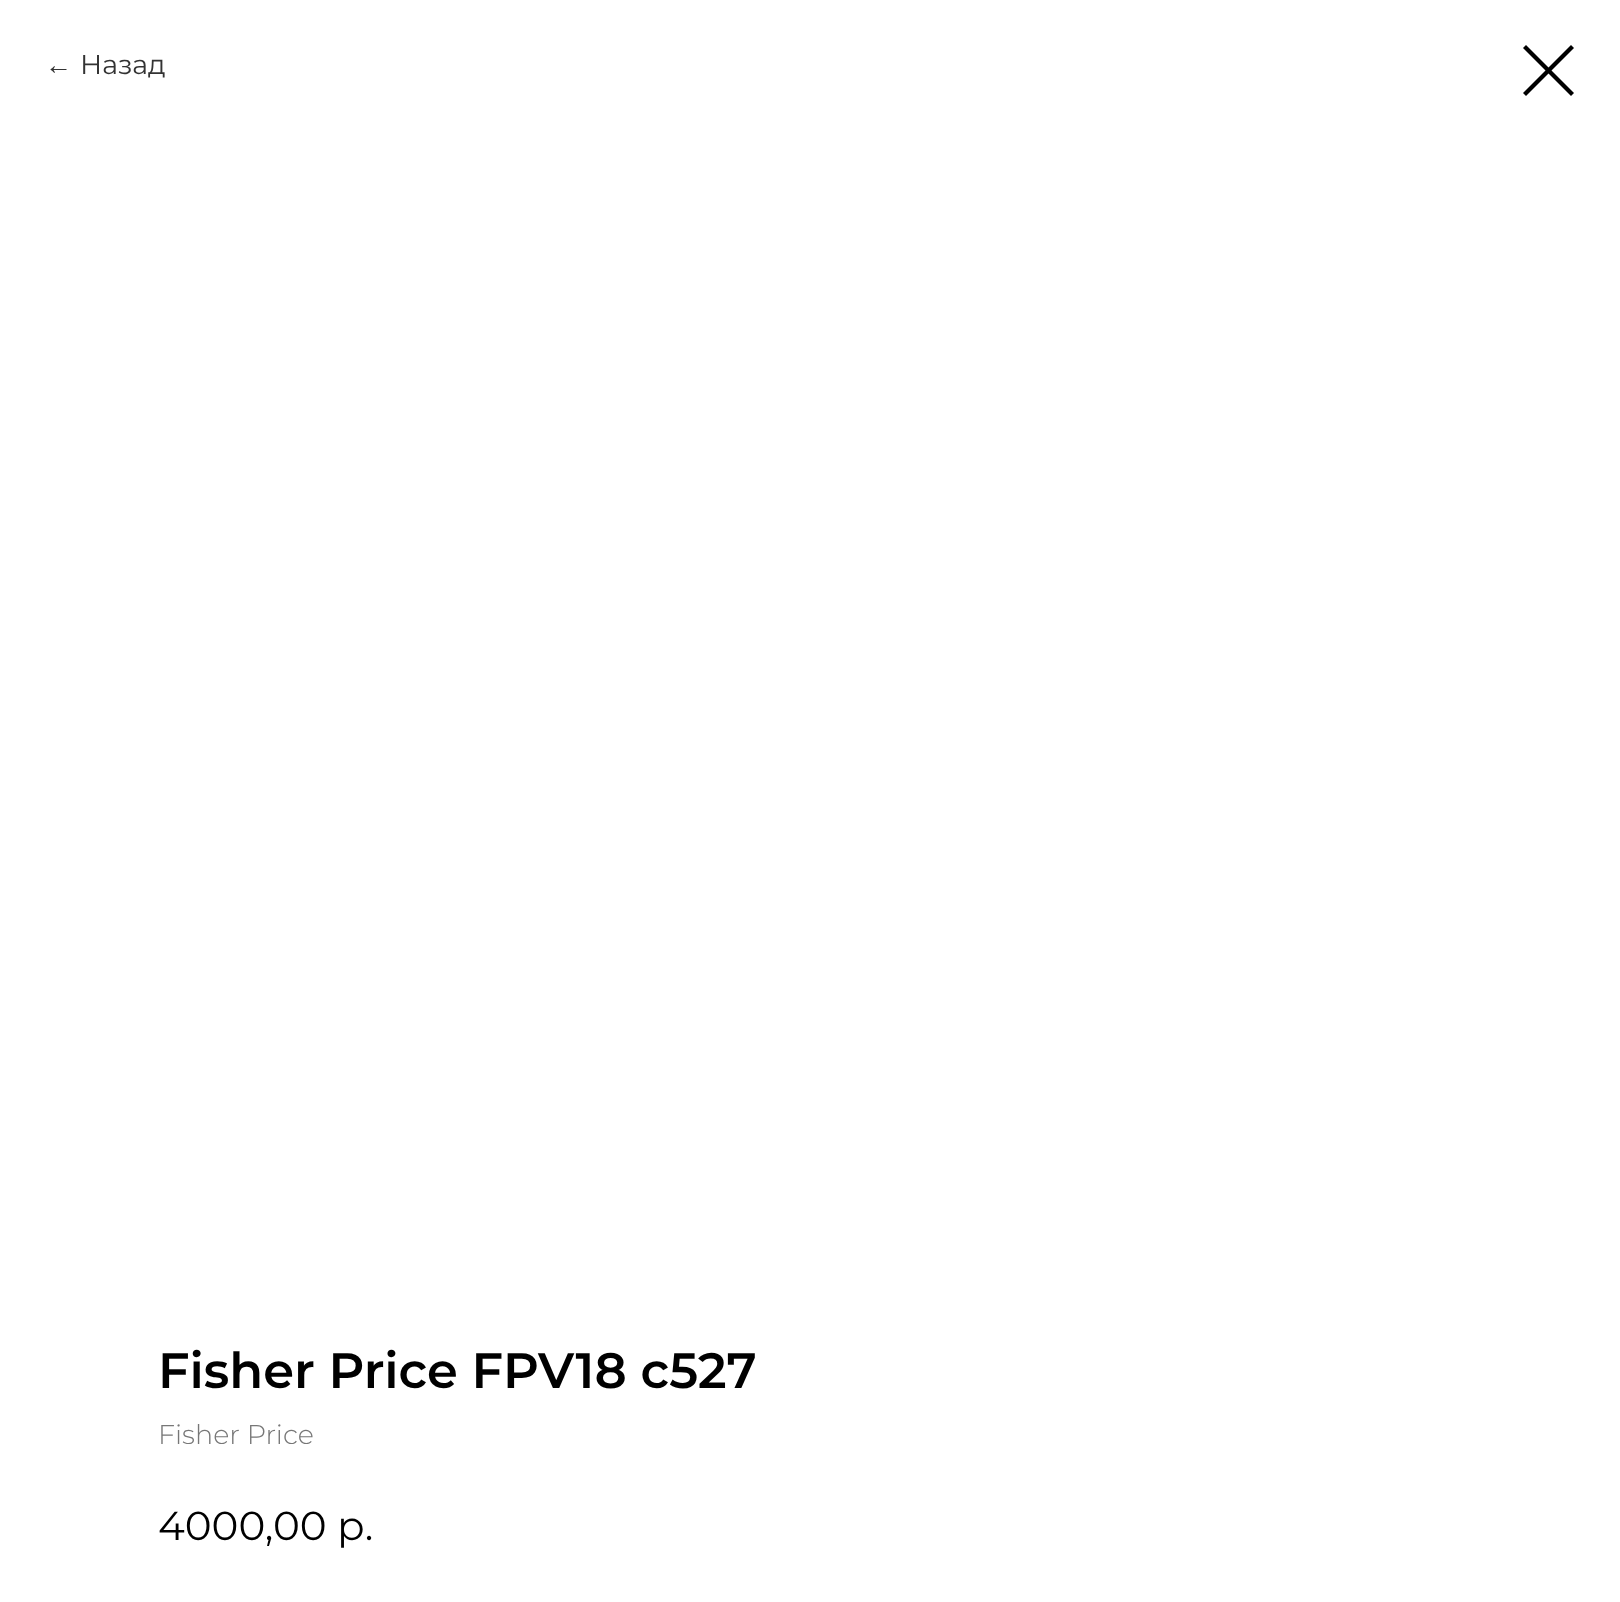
async function draw(canvas) {
  canvas.width = 1620;
  canvas.height = 1602;
  const ctx = canvas.getContext('2d');
  ctx.miterLimit = 4;
  ctx.fontKerning = 'normal';
  function label(s, x, y, font, color) {
    ctx.font = font;
    ctx.fillStyle = color;
    ctx.fillText(s, x, y);
  }
  function rect(x, y, w, h, color) {
    ctx.fillStyle = color;
    ctx.fillRect(x, y, w, h);
  }
  let path;

  rect(0, 0, 1620, 1602, '#fff');
  label('←', 45, 74, '27px Liberation Sans', '#333');
  label('Назад', 80, 74, '27px Montserrat', '#333');
  ctx.fillStyle = '#000';
  path = new Path2D('M1523 48L1526 45L1574 93L1571 96Z');
  ctx.fill(path, 'evenodd');
  path = new Path2D('M1571 45L1574 48L1526 96L1523 93Z');
  ctx.fill(path, 'evenodd');
  label('Fisher Price FPV18 c527', 158, 1388, '600 49.5px Montserrat', '#000');
  label('Fisher Price', 158, 1444, '300 27px Montserrat', '#777');
  label('4000,00', 158, 1540, '40.5px Montserrat', '#000');
  label('р.', 337, 1540, '40.5px Montserrat', '#000');
}

draw(document.querySelector('canvas'));
